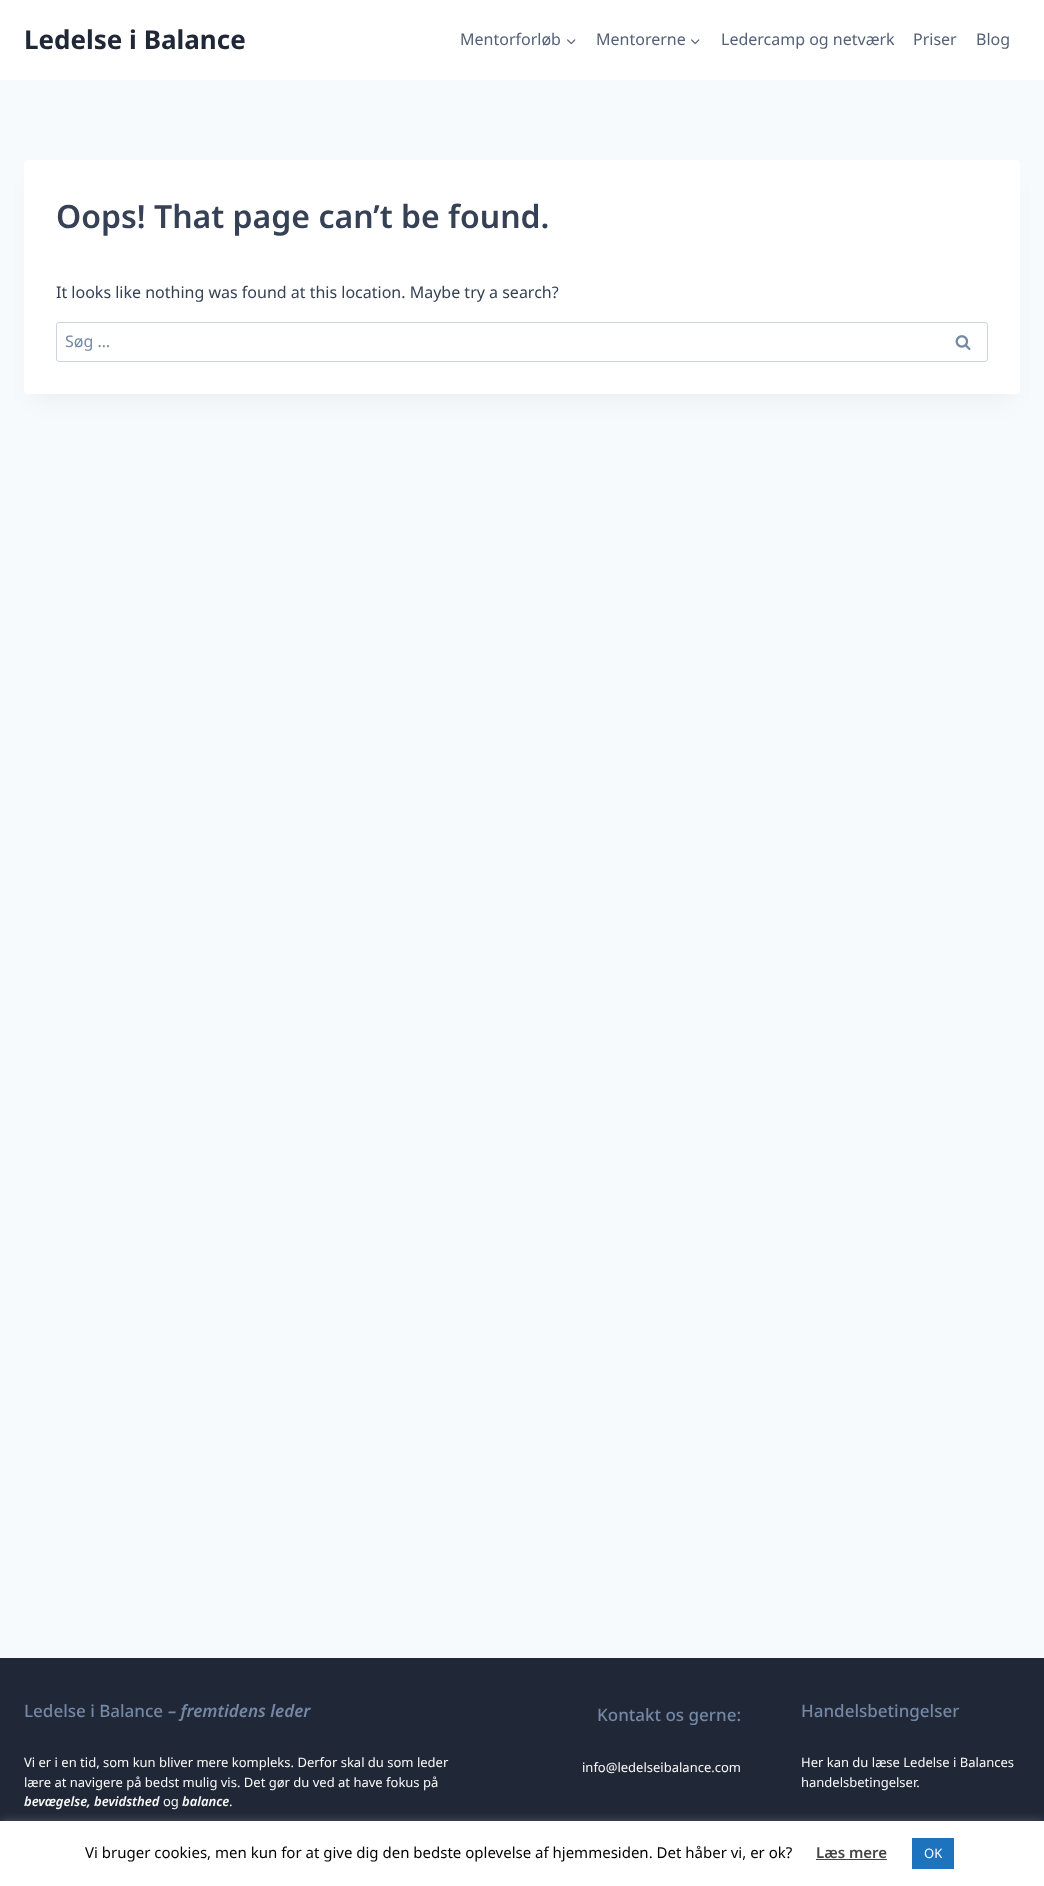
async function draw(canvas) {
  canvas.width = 1044;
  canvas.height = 1886;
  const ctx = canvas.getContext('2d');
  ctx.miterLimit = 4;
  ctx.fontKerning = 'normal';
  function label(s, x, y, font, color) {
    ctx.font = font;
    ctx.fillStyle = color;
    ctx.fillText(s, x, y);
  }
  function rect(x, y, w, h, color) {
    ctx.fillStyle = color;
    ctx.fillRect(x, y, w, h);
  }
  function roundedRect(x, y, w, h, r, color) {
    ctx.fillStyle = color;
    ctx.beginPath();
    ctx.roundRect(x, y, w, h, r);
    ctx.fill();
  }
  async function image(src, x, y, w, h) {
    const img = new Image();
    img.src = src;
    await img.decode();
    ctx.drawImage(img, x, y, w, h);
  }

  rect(0, 0, 1044, 1886, '#f7fafc');
  rect(0, 0, 1044, 80, '#fff');
  label('Ledelse i Balance', 24, 49, 'bold 26px Noto Sans', '#202736');
  label('Mentorforløb', 460, 45, '16px Noto Sans', '#536077');
  await image('assets/img1.png', 567, 39, 9, 6);
  label('Mentorerne', 596, 45, '16px Noto Sans', '#536077');
  await image('assets/img1.png', 691, 39, 9, 6);
  label('Ledercamp og netværk', 721, 45, '16px Noto Sans', '#536077');
  label('Priser', 913, 45, '16px Noto Sans', '#536077');
  label('Blog', 976, 45, '16px Noto Sans', '#536077');
  ctx.fillStyle = '#0000000d';
  ctx.filter = 'blur(12.5px)';
  ctx.beginPath();
  ctx.rect(34, 185, 976, 214);
  ctx.fill();
  ctx.filter = 'none';
  roundedRect(24, 160, 996, 234, 4, '#fff');
  label('Oops! That page can’t be found.', 56, 228, '600 32px Noto Sans', '#364155');
  label('It looks like nothing was found at this location. Maybe try a search?', 56, 298, '16px Noto Sans', '#364155');
  ctx.beginPath();
  ctx.roundRect(56.5, 322.5, 931, 39, 2.5);
  ctx.strokeStyle = '#cbd5e0';
  ctx.stroke();
  label('Søg …', 65, 347, '16px Noto Sans', '#7487a4');
  await image('assets/img2.png', 955, 335, 16, 15);
  rect(0, 1658, 1044, 163, '#202736');
  label('Ledelse i Balance', 24, 1717, '500 17px Noto Sans', '#7487a4');
  label('– fremtidens leder', 168, 1717, 'italic 600 17px Noto Sans', '#7487a4');
  label('Vi er i en tid, som kun bliver mere kompleks. Derfor skal du som leder', 24, 1767, '13px Noto Sans', '#fafaf9');
  label('lære at navigere på bedst mulig vis. Det gør du ved at have fokus på', 24, 1787, '13px Noto Sans', '#fafaf9');
  label('bevægelse, bevidsthed', 24, 1806, 'italic 600 13px Noto Sans', '#fafaf9');
  label('og', 163, 1806, '13px Noto Sans', '#fafaf9');
  label('balance', 182, 1806, 'italic 600 13px Noto Sans', '#fafaf9');
  label('.', 229, 1806, '13px Noto Sans', '#fafaf9');
  label('Kontakt os gerne:', 597, 1721, '500 17px Noto Sans', '#7487a4');
  label('info@ledelseibalance.com', 582, 1772, '13px Noto Sans', '#fafaf9');
  label('Handelsbetingelser', 801, 1717, '500 17px Noto Sans', '#7487a4');
  label('Her kan du læse Ledelse i Balances', 801, 1767, '13px Noto Sans', '#fafaf9');
  label('handelsbetingelser.', 801, 1787, '13px Noto Sans', '#fafaf9');
  ctx.fillStyle = '#acabab4d';
  ctx.filter = 'blur(5px)';
  ctx.beginPath();
  ctx.rect(0, 1820, 1044, 65);
  ctx.fill();
  ctx.filter = 'none';
  rect(0, 1821, 1044, 65, '#fff');
  label('Vi bruger cookies, men kun for at give dig den bedste oplevelse af hjemmesiden. Det håber vi, er ok?', 85, 1858, '15px Noto Sans', '#000');
  label('Læs mere', 816, 1858, '600 15px Noto Sans', '#444');
  rect(816, 1859, 71, 1, '#444');
  rect(912, 1838, 42, 31, '#1e73be');
  label('OK', 924, 1858, '13px Noto Sans', '#fff');
}

draw(document.querySelector('canvas'));
